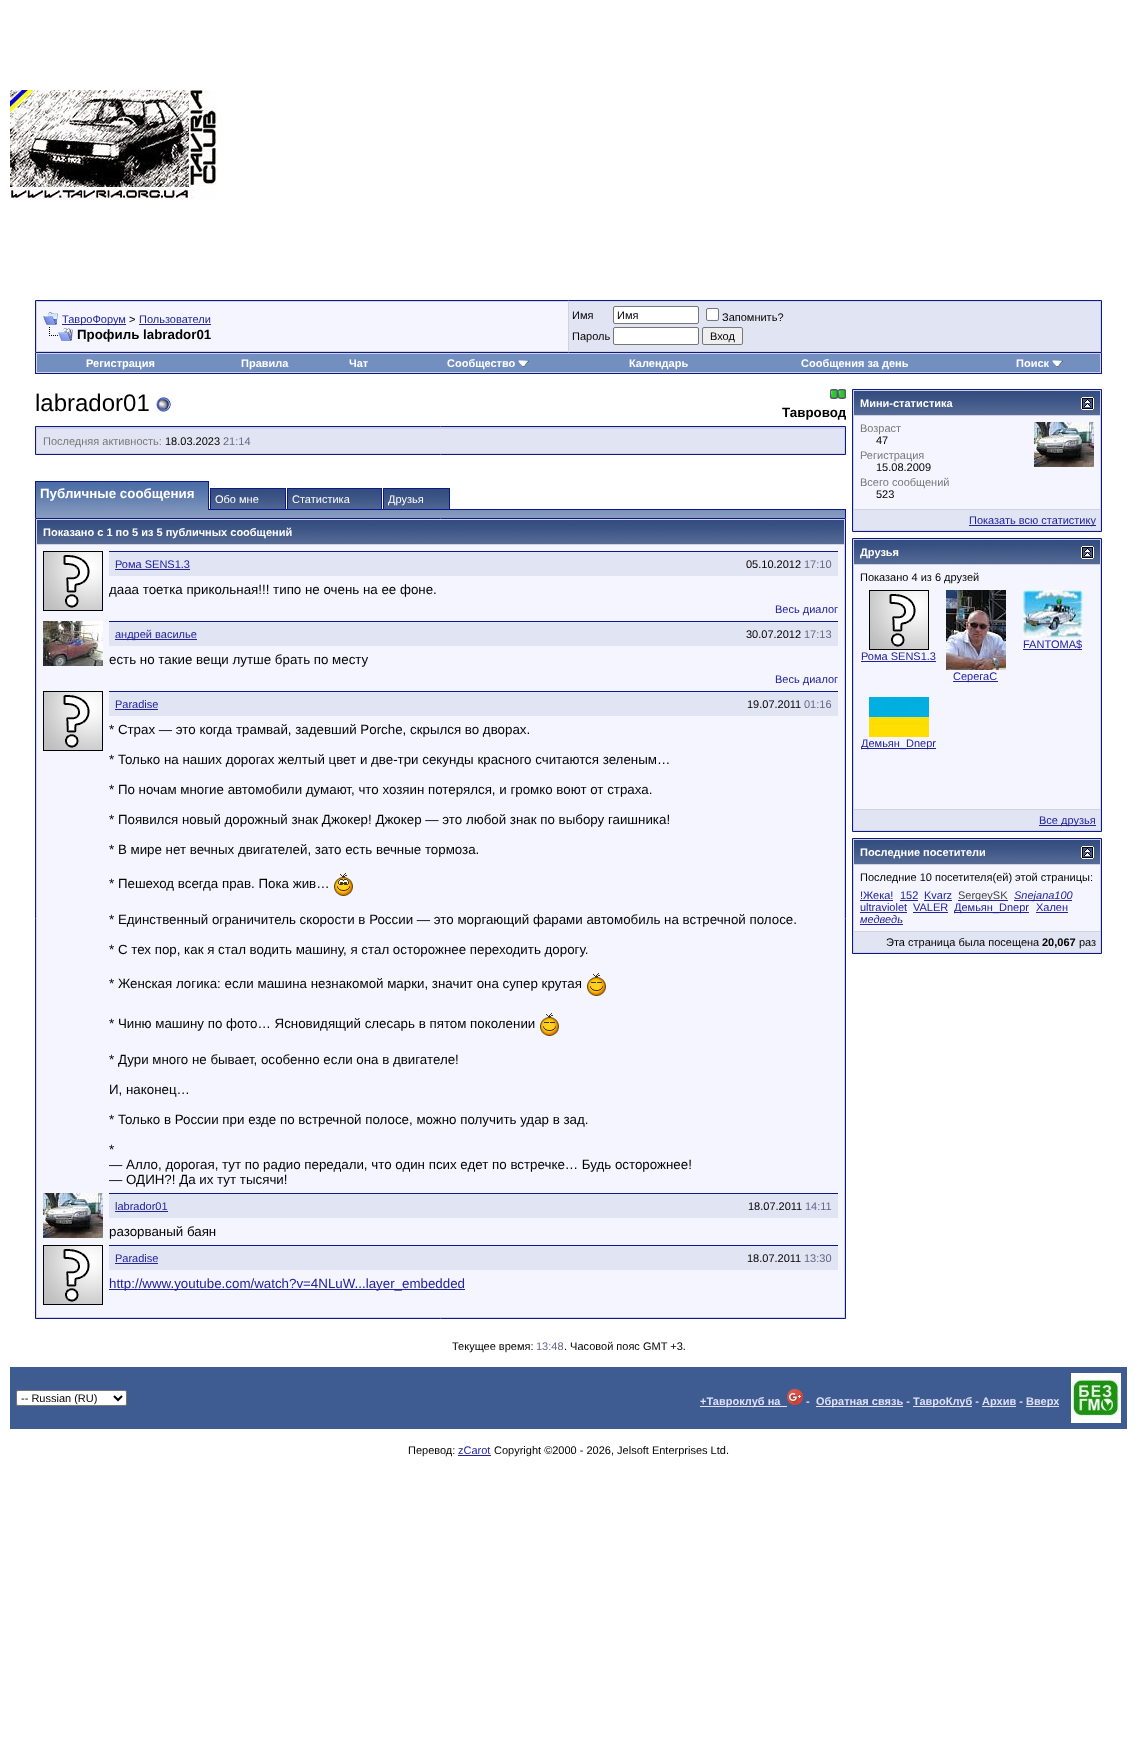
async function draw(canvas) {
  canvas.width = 1137;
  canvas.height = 1742;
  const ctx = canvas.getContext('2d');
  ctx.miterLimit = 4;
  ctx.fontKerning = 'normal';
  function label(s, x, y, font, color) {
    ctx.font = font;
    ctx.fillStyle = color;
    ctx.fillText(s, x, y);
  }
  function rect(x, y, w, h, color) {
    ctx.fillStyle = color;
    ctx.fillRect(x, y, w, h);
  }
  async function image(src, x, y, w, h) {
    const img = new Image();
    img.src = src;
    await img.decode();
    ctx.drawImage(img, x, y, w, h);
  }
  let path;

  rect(0, 0, 1137, 1742, '#fff');
  await image('assets/img1.png', 10, 90, 207, 110);
  ctx.fillStyle = '#d1d1e1';
  ctx.beginPath();
  ctx.rect(35.5, 300.5, 1066, 52);
  ctx.fill();
  ctx.strokeStyle = '#0b198c';
  ctx.stroke();
  rect(37, 302, 531, 49, '#f5f5ff');
  await image('assets/img2.png', 43, 312, 15, 13);
  rect(62, 324, 64, 1, '#22229c');
  label('ТавроФорум', 62, 323, '11px Liberation Sans', '#22229c');
  label('>', 129, 323, '11px Liberation Sans', '#000');
  label('Пользователи', 139, 323, '11px Liberation Sans', '#22229c');
  rect(139, 324, 72, 1, '#22229c');
  await image('assets/img3.png', 49, 327, 24, 14);
  label('Профиль labrador01', 77, 339, 'bold 13.33px Liberation Sans', '#000');
  rect(569, 302, 531, 49, '#e1e4f2');
  label('Имя', 572, 319, '11px Liberation Sans', '#000');
  ctx.fillStyle = '#fff';
  ctx.beginPath();
  ctx.roundRect(613.5, 306.5, 85, 17, 1.5);
  ctx.fill();
  ctx.strokeStyle = '#767676';
  ctx.stroke();
  label('Имя', 617, 319, '11px Liberation Sans', '#000');
  ctx.fillStyle = '#fff';
  ctx.beginPath();
  ctx.roundRect(706.5, 308.5, 12, 12, 1.5);
  ctx.fill();
  ctx.stroke();
  label('Запомнить?', 722, 321, '11px Liberation Sans', '#000');
  label('Пароль', 572, 340, '11px Liberation Sans', '#000');
  ctx.fillStyle = '#fff';
  ctx.beginPath();
  ctx.roundRect(613.5, 327.5, 85, 17, 1.5);
  ctx.fill();
  ctx.stroke();
  ctx.fillStyle = '#efefef';
  ctx.beginPath();
  ctx.roundRect(702.5, 327.5, 40, 17, 1.5);
  ctx.fill();
  ctx.stroke();
  label('Вход', 710, 340, '11px Liberation Sans', '#000');
  rect(36, 353, 1065, 20, '#d1d1e1');
  rect(1101, 353, 1, 21, '#0b198c');
  rect(35, 373, 1067, 1, '#0b198c');
  rect(35, 353, 1, 21, '#0b198c');
  rect(37, 354, 1063, 18, '#738fbf');
  label('Регистрация', 86, 367, 'bold 11px Liberation Sans', '#fff');
  label('Правила', 241, 367, 'bold 11px Liberation Sans', '#fff');
  label('Чат', 349, 367, 'bold 11px Liberation Sans', '#fff');
  label('Сообщество', 447, 367, 'bold 11px Liberation Sans', '#fff');
  await image('assets/img4.png', 518, 360, 11, 7);
  label('Календарь', 629, 367, 'bold 11px Liberation Sans', '#fff');
  label('Сообщения за день', 801, 367, 'bold 11px Liberation Sans', '#fff');
  label('Поиск', 1016, 367, 'bold 11px Liberation Sans', '#fff');
  await image('assets/img4.png', 1052, 360, 11, 7);
  label('labrador01', 35, 411, '24px Liberation Sans', '#000');
  await image('assets/img5.png', 156, 397, 15, 15);
  await image('assets/img6.png', 830, 389, 8, 10);
  await image('assets/img6.png', 838, 389, 8, 10);
  label('Тавровод', 782, 417, 'bold 13.33px Liberation Sans', '#000');
  ctx.fillStyle = '#d1d1e1';
  ctx.beginPath();
  ctx.rect(35.5, 426.5, 810, 28);
  ctx.fill();
  ctx.strokeStyle = '#0b198c';
  ctx.stroke();
  rect(37, 429, 807, 24, '#e1e4f2');
  label('Последняя активность:', 43, 445, '11px Liberation Sans', '#777');
  label('18.03.2023', 165, 445, '11px Liberation Sans', '#000');
  label('21:14', 223, 445, '11px Liberation Sans', '#666686');
  await image('assets/img7.png', 36, 482, 172, 28);
  rect(35, 481, 174, 1, '#0b198c');
  rect(208, 481, 1, 29, '#0b198c');
  rect(35, 509, 1, 9, '#0b198c');
  rect(35, 481, 1, 29, '#0b198c');
  label('Публичные сообщения', 40, 498, 'bold 13.33px Liberation Sans', '#fff');
  await image('assets/img8.png', 211, 489, 74, 20);
  rect(209, 509, 637, 1, '#0b198c');
  ctx.strokeRect(210.5, 488.5, 75, 21);
  label('Обо мне', 215, 503, '11px Liberation Sans', '#fff');
  await image('assets/img9.png', 288, 489, 93, 20);
  ctx.strokeRect(287.5, 488.5, 94, 21);
  label('Статистика', 292, 503, '11px Liberation Sans', '#fff');
  await image('assets/img10.png', 384, 489, 65, 20);
  ctx.strokeRect(383.5, 488.5, 66, 21);
  label('Друзья', 388, 503, '11px Liberation Sans', '#fff');
  rect(36, 515, 809, 3, '#869bbf');
  await image('assets/img11.png', 36, 510, 809, 5);
  rect(845, 509, 1, 9, '#0b198c');
  ctx.fillStyle = '#d1d1e1';
  ctx.beginPath();
  ctx.rect(35.5, 518.5, 810, 800);
  ctx.fill();
  ctx.stroke();
  await image('assets/img12.png', 37, 520, 807, 24);
  label('Показано с 1 по 5 из 5 публичных сообщений', 43, 536, 'bold 11px Liberation Sans', '#fff');
  rect(37, 545, 807, 772, '#f5f5ff');
  await image('assets/img13.png', 43, 551, 60, 60);
  rect(109, 551, 729, 1, '#0b198c');
  rect(109, 552, 729, 24, '#e1e4f2');
  label('Рома SENS1.3', 115, 568, '11px Liberation Sans', '#22229c');
  rect(115, 569, 75, 1, '#22229c');
  label('05.10.2012', 746, 568, '11px Liberation Sans', '#000');
  label('17:10', 804, 568, '11px Liberation Sans', '#666686');
  label('дааа тоетка прикольная!!! типо не очень на ее фоне.', 109, 594, '13.33px Liberation Sans', '#000');
  label('Весь диалог', 775, 613, '11px Liberation Sans', '#22229c');
  await image('assets/img14.png', 43, 621, 60, 45);
  rect(109, 621, 729, 1, '#0b198c');
  rect(109, 622, 729, 24, '#e1e4f2');
  rect(115, 639, 82, 1, '#22229c');
  label('андрей василье', 115, 638, '11px Liberation Sans', '#22229c');
  label('30.07.2012', 746, 638, '11px Liberation Sans', '#000');
  label('17:13', 804, 638, '11px Liberation Sans', '#666686');
  label('есть но такие вещи лутше брать по месту', 109, 664, '13.33px Liberation Sans', '#000');
  label('Весь диалог', 775, 683, '11px Liberation Sans', '#22229c');
  await image('assets/img13.png', 43, 691, 60, 60);
  rect(109, 691, 729, 1, '#0b198c');
  rect(109, 692, 729, 24, '#e1e4f2');
  label('Paradise', 115, 708, '11px Liberation Sans', '#22229c');
  rect(115, 709, 43, 1, '#22229c');
  label('19.07.2011', 747, 708, '11px Liberation Sans', '#000');
  label('01:16', 804, 708, '11px Liberation Sans', '#666686');
  label('* Страх — это когда трамвай, задевший Porche, скрылся во дворах.', 109, 734, '13.33px Liberation Sans', '#000');
  label('* Только на наших дорогах желтый цвет и две-три секунды красного считаются зеленым…', 109, 764, '13.33px Liberation Sans', '#000');
  label('* По ночам многие автомобили думают, что хозяин потерялся, и громко воют от страха.', 109, 794, '13.33px Liberation Sans', '#000');
  label('* Появился новый дорожный знак Джокер! Джокер — это любой знак по выбору гаишника!', 109, 824, '13.33px Liberation Sans', '#000');
  label('* В мире нет вечных двигателей, зато есть вечные тормоза.', 109, 854, '13.33px Liberation Sans', '#000');
  label('* Пешеход всегда прав. Пока жив…', 109, 888, '13.33px Liberation Sans', '#000');
  await image('assets/img15.png', 334, 873, 19, 23);
  label('* Единственный ограничитель скорости в России — это моргающий фарами автомобиль на встречной полосе.', 109, 924, '13.33px Liberation Sans', '#000');
  label('* С тех пор, как я стал водить машину, я стал осторожнее переходить дорогу.', 109, 954, '13.33px Liberation Sans', '#000');
  label('* Женская логика: если машина незнакомой марки, значит она супер крутая', 109, 988, '13.33px Liberation Sans', '#000');
  await image('assets/img16.png', 587, 973, 19, 23);
  label('* Чиню машину по фото… Ясновидящий слесарь в пятом поколении', 109, 1028, '13.33px Liberation Sans', '#000');
  await image('assets/img16.png', 540, 1013, 19, 23);
  label('* Дури много не бывает, особенно если она в двигателе!', 109, 1064, '13.33px Liberation Sans', '#000');
  label('И, наконец…', 109, 1094, '13.33px Liberation Sans', '#000');
  label('* Только в России при езде по встречной полосе, можно получить удар в зад.', 109, 1124, '13.33px Liberation Sans', '#000');
  label('*', 109, 1154, '13.33px Liberation Sans', '#000');
  label('— Алло, дорогая, тут по радио передали, что один псих едет по встречке… Будь осторожнее!', 109, 1169, '13.33px Liberation Sans', '#000');
  label('— ОДИН?! Да их тут тысячи!', 109, 1184, '13.33px Liberation Sans', '#000');
  await image('assets/img17.png', 43, 1193, 60, 45);
  rect(109, 1193, 729, 1, '#0b198c');
  rect(109, 1194, 729, 24, '#e1e4f2');
  label('labrador01', 115, 1210, '11px Liberation Sans', '#22229c');
  rect(115, 1211, 53, 1, '#22229c');
  label('18.07.2011', 748, 1210, '11px Liberation Sans', '#000');
  label('14:11', 805, 1210, '11px Liberation Sans', '#666686');
  label('разорваный баян', 109, 1236, '13.33px Liberation Sans', '#000');
  await image('assets/img13.png', 43, 1245, 60, 60);
  rect(109, 1245, 729, 1, '#0b198c');
  rect(109, 1246, 729, 24, '#e1e4f2');
  label('Paradise', 115, 1262, '11px Liberation Sans', '#22229c');
  rect(115, 1263, 43, 1, '#22229c');
  label('18.07.2011', 747, 1262, '11px Liberation Sans', '#000');
  label('13:30', 804, 1262, '11px Liberation Sans', '#666686');
  rect(109, 1289, 356, 1, '#22229c');
  label('http://www.youtube.com/watch?v=4NLuW...layer_embedded', 109, 1288, '13.33px Liberation Sans', '#22229c');
  ctx.fillStyle = '#d1d1e1';
  ctx.beginPath();
  ctx.rect(852.5, 389.5, 249, 142);
  ctx.fill();
  ctx.stroke();
  await image('assets/img18.png', 854, 391, 246, 24);
  label('Мини-статистика', 860, 407, 'bold 11px Liberation Sans', '#fff');
  await image('assets/img19.png', 1081, 397, 13, 13);
  rect(854, 416, 246, 93, '#f5f5ff');
  label('Возраст', 860, 432, '11px Liberation Sans', '#777');
  label('47', 876, 444, '11px Liberation Sans', '#000');
  label('Регистрация', 860, 459, '11px Liberation Sans', '#777');
  label('15.08.2009', 876, 471, '11px Liberation Sans', '#000');
  label('Всего сообщений', 860, 486, '11px Liberation Sans', '#777');
  label('523', 876, 498, '11px Liberation Sans', '#000');
  await image('assets/img17.png', 1034, 422, 60, 45);
  rect(854, 510, 246, 20, '#e1e4f2');
  rect(969, 525, 127, 1, '#22229c');
  label('Показать всю статистику', 969, 524, '11px Liberation Sans', '#22229c');
  ctx.fillStyle = '#d1d1e1';
  ctx.beginPath();
  ctx.rect(852.5, 538.5, 249, 293);
  ctx.fill();
  ctx.stroke();
  await image('assets/img18.png', 854, 540, 246, 24);
  label('Друзья', 860, 556, 'bold 11px Liberation Sans', '#fff');
  await image('assets/img19.png', 1081, 546, 13, 13);
  rect(854, 565, 246, 244, '#f5f5ff');
  label('Показано 4 из 6 друзей', 860, 581, '11px Liberation Sans', '#000');
  await image('assets/img20.png', 1023, 590, 60, 48);
  label('FANTOMA$', 1023, 648, '11px Liberation Sans', '#22229c');
  rect(1023, 649, 59, 1, '#22229c');
  await image('assets/img13.png', 869, 590, 60, 60);
  label('Рома SENS1.3', 861, 660, '11px Liberation Sans', '#22229c');
  rect(861, 661, 75, 1, '#22229c');
  await image('assets/img21.png', 946, 590, 60, 80);
  rect(953, 681, 45, 1, '#22229c');
  label('СерегаC', 953, 680, '11px Liberation Sans', '#22229c');
  await image('assets/img22.png', 869, 697, 60, 40);
  rect(861, 748, 75, 1, '#22229c');
  label('Демьян_Dnepr', 861, 747, '11px Liberation Sans', '#22229c');
  rect(854, 810, 246, 20, '#e1e4f2');
  rect(1039, 825, 57, 1, '#22229c');
  label('Все друзья', 1039, 824, '11px Liberation Sans', '#22229c');
  ctx.fillStyle = '#d1d1e1';
  ctx.beginPath();
  ctx.rect(852.5, 838.5, 249, 115);
  ctx.fill();
  ctx.stroke();
  await image('assets/img18.png', 854, 840, 246, 24);
  label('Последние посетители', 860, 856, 'bold 11px Liberation Sans', '#fff');
  await image('assets/img19.png', 1081, 846, 13, 13);
  rect(854, 865, 246, 66, '#f5f5ff');
  label('Последние 10 посетителя(ей) этой страницы:', 860, 881, '11px Liberation Sans', '#000');
  label('!Жека!', 860, 899, '11px Liberation Sans', '#22229c');
  rect(860, 900, 33, 1, '#22229c');
  label('152', 900, 899, '11px Liberation Sans', '#22229c');
  rect(900, 900, 18, 1, '#22229c');
  label('Kvarz', 924, 899, '11px Liberation Sans', '#22229c');
  rect(924, 900, 28, 1, '#22229c');
  rect(958, 900, 50, 1, '#22229c');
  label('SergeySK', 958, 899, '11px Liberation Sans', '#444');
  rect(1014, 900, 58, 1, '#22229c');
  label('Snejana100', 1014, 899, 'italic 11px Liberation Sans', '#22229c');
  label('ultraviolet', 860, 911, '11px Liberation Sans', '#22229c');
  rect(860, 912, 47, 1, '#22229c');
  label('VALER', 913, 911, '11px Liberation Sans', '#22229c');
  rect(913, 912, 35, 1, '#22229c');
  rect(954, 912, 75, 1, '#22229c');
  label('Демьян_Dnepr', 954, 911, '11px Liberation Sans', '#22229c');
  label('Хален', 1036, 911, '11px Liberation Sans', '#22229c');
  rect(1036, 912, 32, 1, '#22229c');
  label('медведь', 860, 923, 'italic 11px Liberation Sans', '#22229c');
  rect(860, 924, 43, 1, '#22229c');
  rect(854, 932, 246, 20, '#e1e4f2');
  label('Эта страница была посещена', 886, 946, '11px Liberation Sans', '#000');
  label('20,067', 1042, 946, 'bold 11px Liberation Sans', '#000');
  label('раз', 1079, 946, '11px Liberation Sans', '#000');
  label('Текущее время:', 452, 1350, '11px Liberation Sans', '#000');
  label('13:48', 536, 1350, '11px Liberation Sans', '#666686');
  label('. Часовой пояс GMT +3.', 564, 1350, '11px Liberation Sans', '#000');
  rect(10, 1367, 1117, 62, '#3e5c92');
  ctx.fillStyle = '#fff';
  ctx.beginPath();
  ctx.roundRect(16.5, 1390.5, 110, 15, 1.5);
  ctx.fill();
  ctx.strokeStyle = '#767676';
  ctx.stroke();
  path = new Path2D('M114 1396L118 1400L122 1396');
  ctx.strokeStyle = '#000';
  ctx.lineWidth = 2;
  ctx.stroke(path);
  label('-- Russian (RU)', 21, 1402, '11px Liberation Sans', '#000');
  rect(700, 1406, 87, 1, '#e0e0f6');
  label('+Тавроклуб на', 700, 1405, 'bold 11px Liberation Sans', '#e0e0f6');
  await image('assets/img23.png', 787, 1389, 16, 16);
  label('-', 806, 1405, 'bold 11px Liberation Sans', '#e0e0f6');
  rect(816, 1406, 87, 1, '#e0e0f6');
  label('Обратная связь -', 816, 1405, 'bold 11px Liberation Sans', '#e0e0f6');
  rect(913, 1406, 59, 1, '#e0e0f6');
  label('ТавроКлуб -', 913, 1405, 'bold 11px Liberation Sans', '#e0e0f6');
  rect(982, 1406, 34, 1, '#e0e0f6');
  label('Архив -', 982, 1405, 'bold 11px Liberation Sans', '#e0e0f6');
  rect(1026, 1406, 33, 1, '#e0e0f6');
  label('Вверх', 1026, 1405, 'bold 11px Liberation Sans', '#e0e0f6');
  await image('assets/img24.png', 1071, 1373, 50, 50);
  label('Перевод:', 408, 1454, '11px Liberation Sans', '#000');
  label('zCarot', 458, 1454, '11px Liberation Sans', '#22229c');
  rect(458, 1455, 33, 1, '#22229c');
  label('Copyright ©2000 - 2026, Jelsoft Enterprises Ltd.', 494, 1454, '11px Liberation Sans', '#000');
}

draw(document.querySelector('canvas'));
